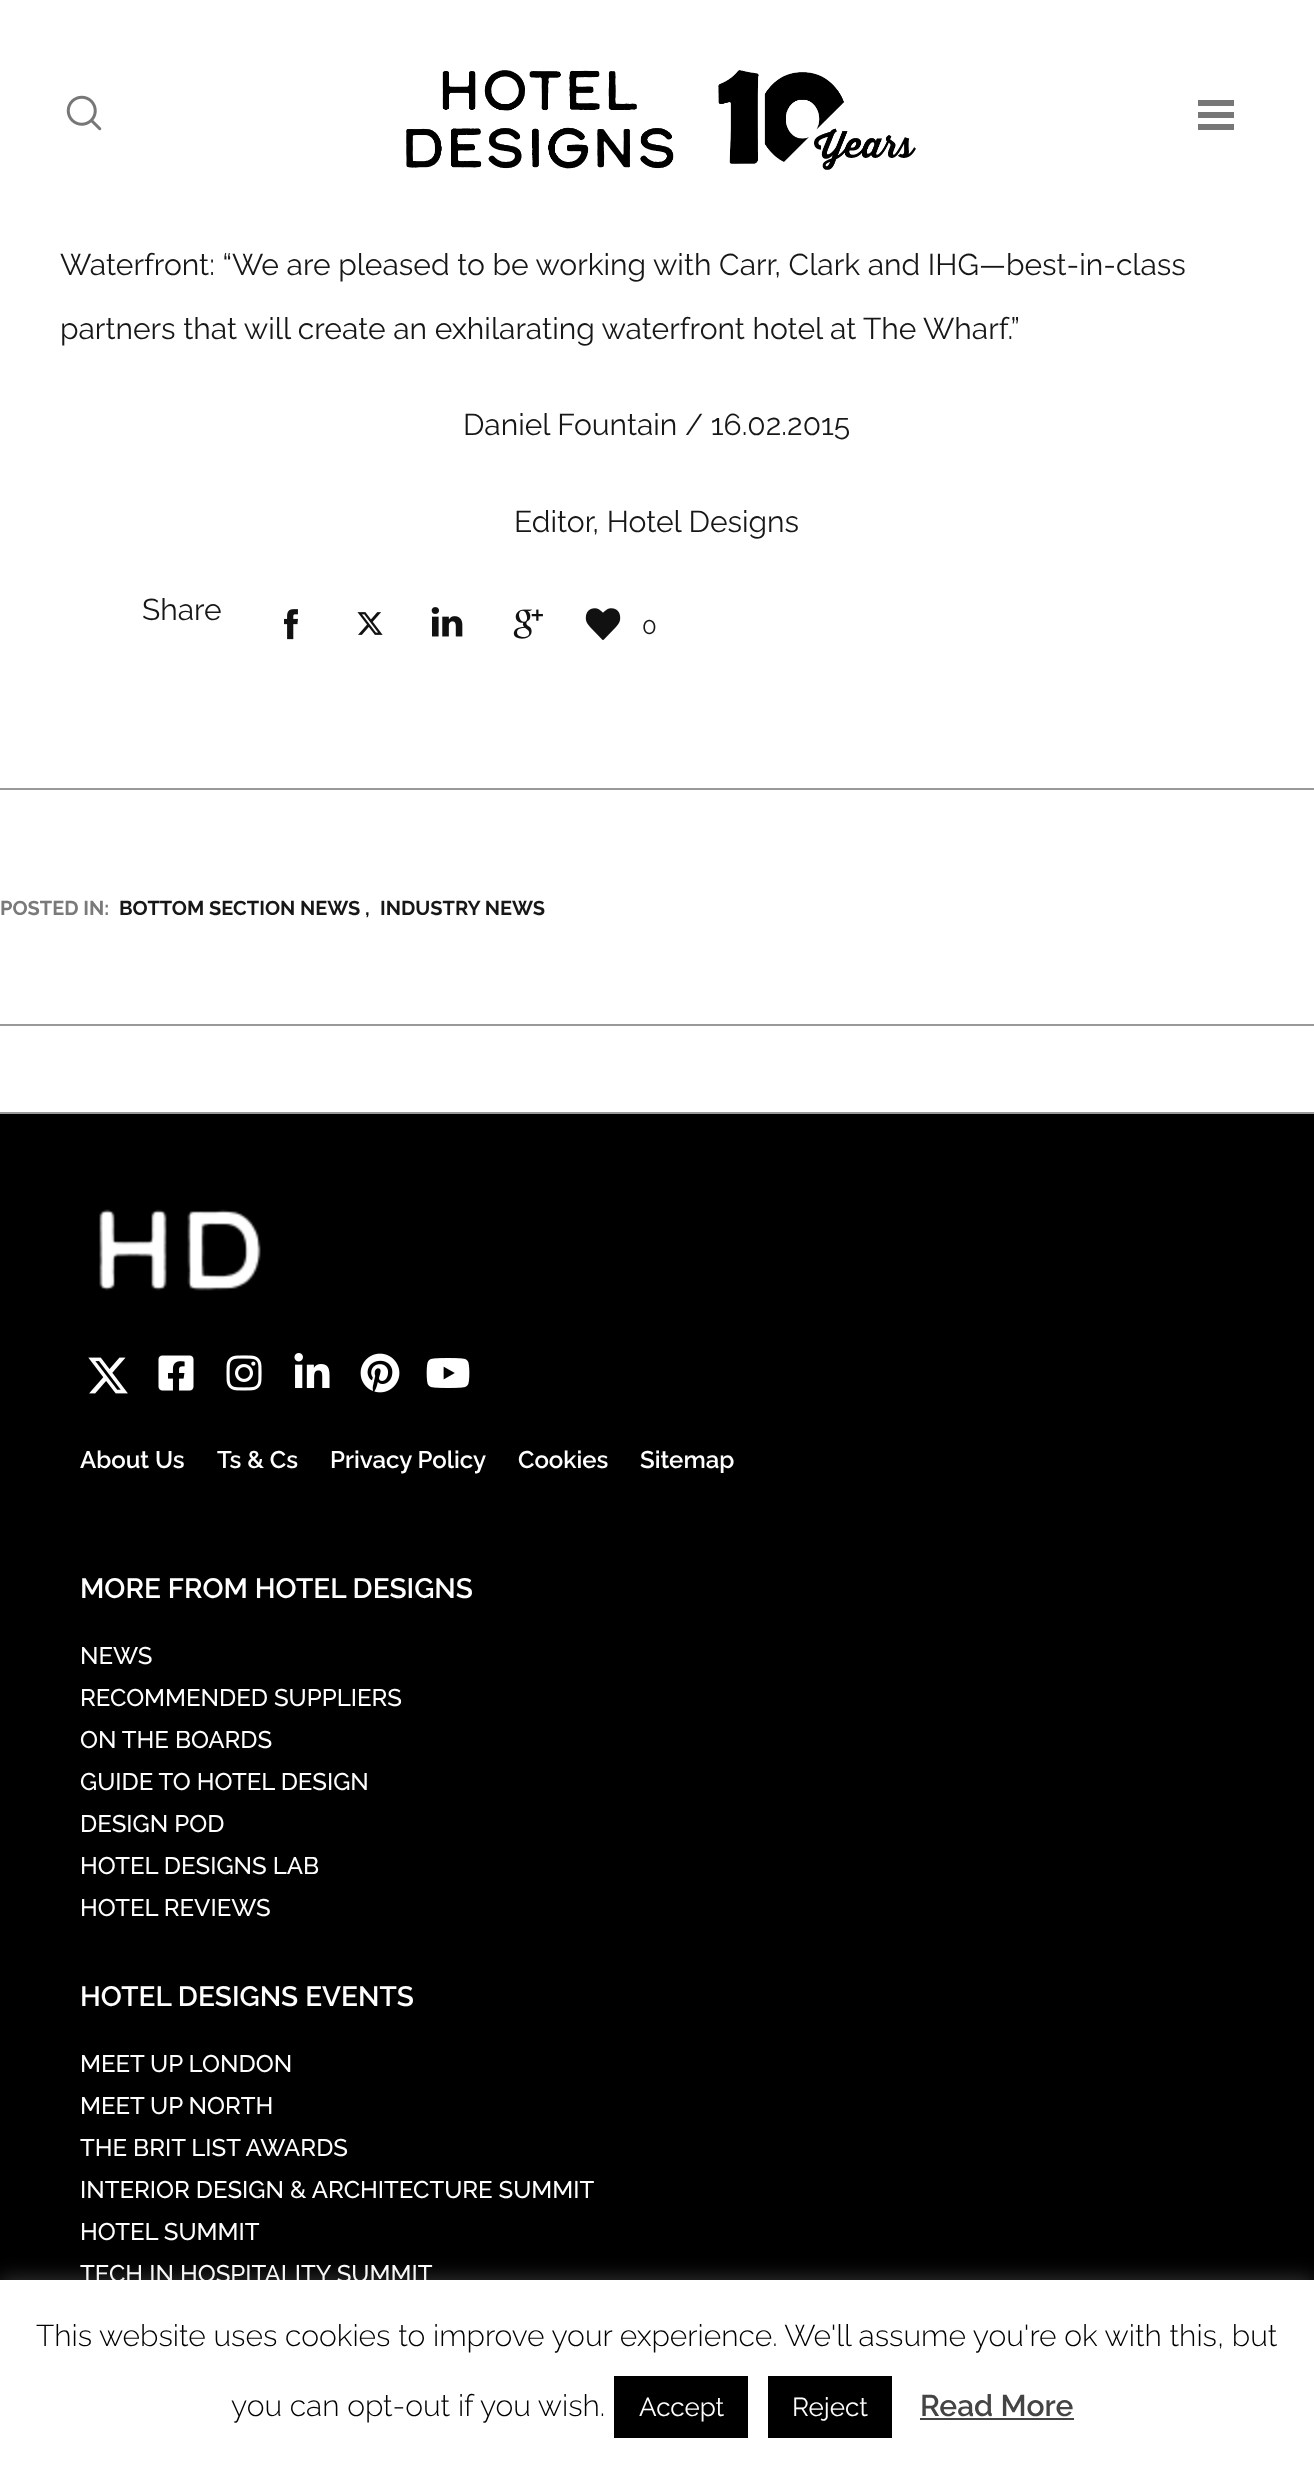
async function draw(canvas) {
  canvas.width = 1314;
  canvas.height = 2471;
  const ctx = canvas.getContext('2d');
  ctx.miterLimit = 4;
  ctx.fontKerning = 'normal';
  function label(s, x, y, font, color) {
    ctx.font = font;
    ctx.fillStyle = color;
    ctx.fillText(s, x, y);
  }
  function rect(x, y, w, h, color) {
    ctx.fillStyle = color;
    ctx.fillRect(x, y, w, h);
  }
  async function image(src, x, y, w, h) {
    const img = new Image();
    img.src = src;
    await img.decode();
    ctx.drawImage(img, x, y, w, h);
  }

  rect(0, 0, 1314, 2471, '#fff');
  await image('assets/img1.png', 66, 95, 36, 36);
  await image('assets/img2.png', 406, 70, 510, 100);
  rect(1198, 100, 36, 6, '#777');
  rect(1198, 112, 36, 6, '#777');
  rect(1198, 124, 36, 6, '#777');
  rect(0, 788, 1314, 2, '#999');
  label('Waterfront: “We are pleased to be working with Carr, Clark and IHG—best-in-class', 60, 275, '30px Raleway', '#171717');
  label('partners that will create an exhilarating waterfront hotel at The Wharf.”', 60, 339, '30px Raleway', '#171717');
  label('Daniel Fountain / 16.02.2015', 463, 435, '30px Raleway', '#171717');
  label('Editor, Hotel Designs', 514, 532, '30px Raleway', '#171717');
  label('Share', 142, 620, '30px Raleway', '#171717');
  await image('assets/img3.png', 284, 609, 14, 31);
  await image('assets/img4.png', 357, 612, 26, 23);
  await image('assets/img5.png', 431, 607, 32, 30);
  await image('assets/img6.png', 513, 609, 30, 30);
  await image('assets/img7.png', 585, 608, 36, 32);
  label('0', 642, 634, '24px Raleway', '#171717');
  rect(0, 1024, 1314, 2, '#999');
  label('POSTED IN:', 0, 915, 'bold 20px Raleway', '#7a7a7a');
  label('BOTTOM SECTION NEWS ,', 119, 915, 'bold 20px Raleway', '#171717');
  label('INDUSTRY NEWS', 380, 915, 'bold 20px Raleway', '#171717');
  rect(0, 1112, 1314, 2, '#999');
  rect(0, 1114, 1314, 1166, '#000');
  await image('assets/img8.png', 99, 1209, 162, 82);
  await image('assets/img9.png', 88, 1357, 40, 37);
  await image('assets/img10.png', 158, 1355, 36, 36);
  await image('assets/img11.png', 226, 1355, 36, 36);
  await image('assets/img12.png', 294, 1353, 36, 35);
  await image('assets/img13.png', 360, 1353, 40, 40);
  await image('assets/img14.png', 426, 1358, 44, 30);
  label('About Us', 80, 1468, '600 24px Raleway', '#fff');
  label('Ts & Cs', 217, 1468, '600 24px Raleway', '#fff');
  label('Privacy Policy', 330, 1468, '600 24px Raleway', '#fff');
  label('Cookies', 518, 1468, '600 24px Raleway', '#fff');
  label('Sitemap', 640, 1468, '600 24px Raleway', '#fff');
  label('MORE FROM HOTEL DESIGNS', 80, 1598, '600 28px Raleway', '#fff');
  label('NEWS', 80, 1664, '500 24px Raleway', '#fff');
  label('RECOMMENDED SUPPLIERS', 80, 1706, '500 24px Raleway', '#fff');
  label('ON THE BOARDS', 80, 1748, '500 24px Raleway', '#fff');
  label('GUIDE TO HOTEL DESIGN', 80, 1790, '500 24px Raleway', '#fff');
  label('DESIGN POD', 80, 1832, '500 24px Raleway', '#fff');
  label('HOTEL DESIGNS LAB', 80, 1874, '500 24px Raleway', '#fff');
  label('HOTEL REVIEWS', 80, 1916, '500 24px Raleway', '#fff');
  label('HOTEL DESIGNS EVENTS', 80, 2006, '600 28px Raleway', '#fff');
  label('MEET UP LONDON', 80, 2072, '500 24px Raleway', '#fff');
  label('MEET UP NORTH', 80, 2114, '500 24px Raleway', '#fff');
  label('THE BRIT LIST AWARDS', 80, 2156, '500 24px Raleway', '#fff');
  label('INTERIOR DESIGN & ARCHITECTURE SUMMIT', 80, 2198, '500 24px Raleway', '#fff');
  label('HOTEL SUMMIT', 80, 2240, '500 24px Raleway', '#fff');
  label('TECH IN HOSPITALITY SUMMIT', 80, 2282, '500 24px Raleway', '#fff');
  ctx.fillStyle = '#acabab4d';
  ctx.filter = 'blur(10px)';
  ctx.beginPath();
  ctx.rect(0, 2278, 1314, 192);
  ctx.fill();
  ctx.filter = 'none';
  rect(0, 2280, 1314, 191, '#fff');
  label('This website uses cookies to improve your experience. We\'ll assume you\'re ok with this, but', 36, 2346, '300 30px Raleway', '#000');
  label('you can opt-out if you wish.', 231, 2416, '300 30px Raleway', '#000');
  rect(614, 2376, 134, 62, '#000');
  label('Accept', 639, 2416, '26px Raleway', '#fff');
  rect(768, 2376, 124, 62, '#000');
  label('Reject', 792, 2416, '26px Raleway', '#fff');
  label('Read More', 920, 2416, '600 30px Raleway', '#444');
  rect(920, 2418, 154, 2, '#444');
}

draw(document.querySelector('canvas'));
